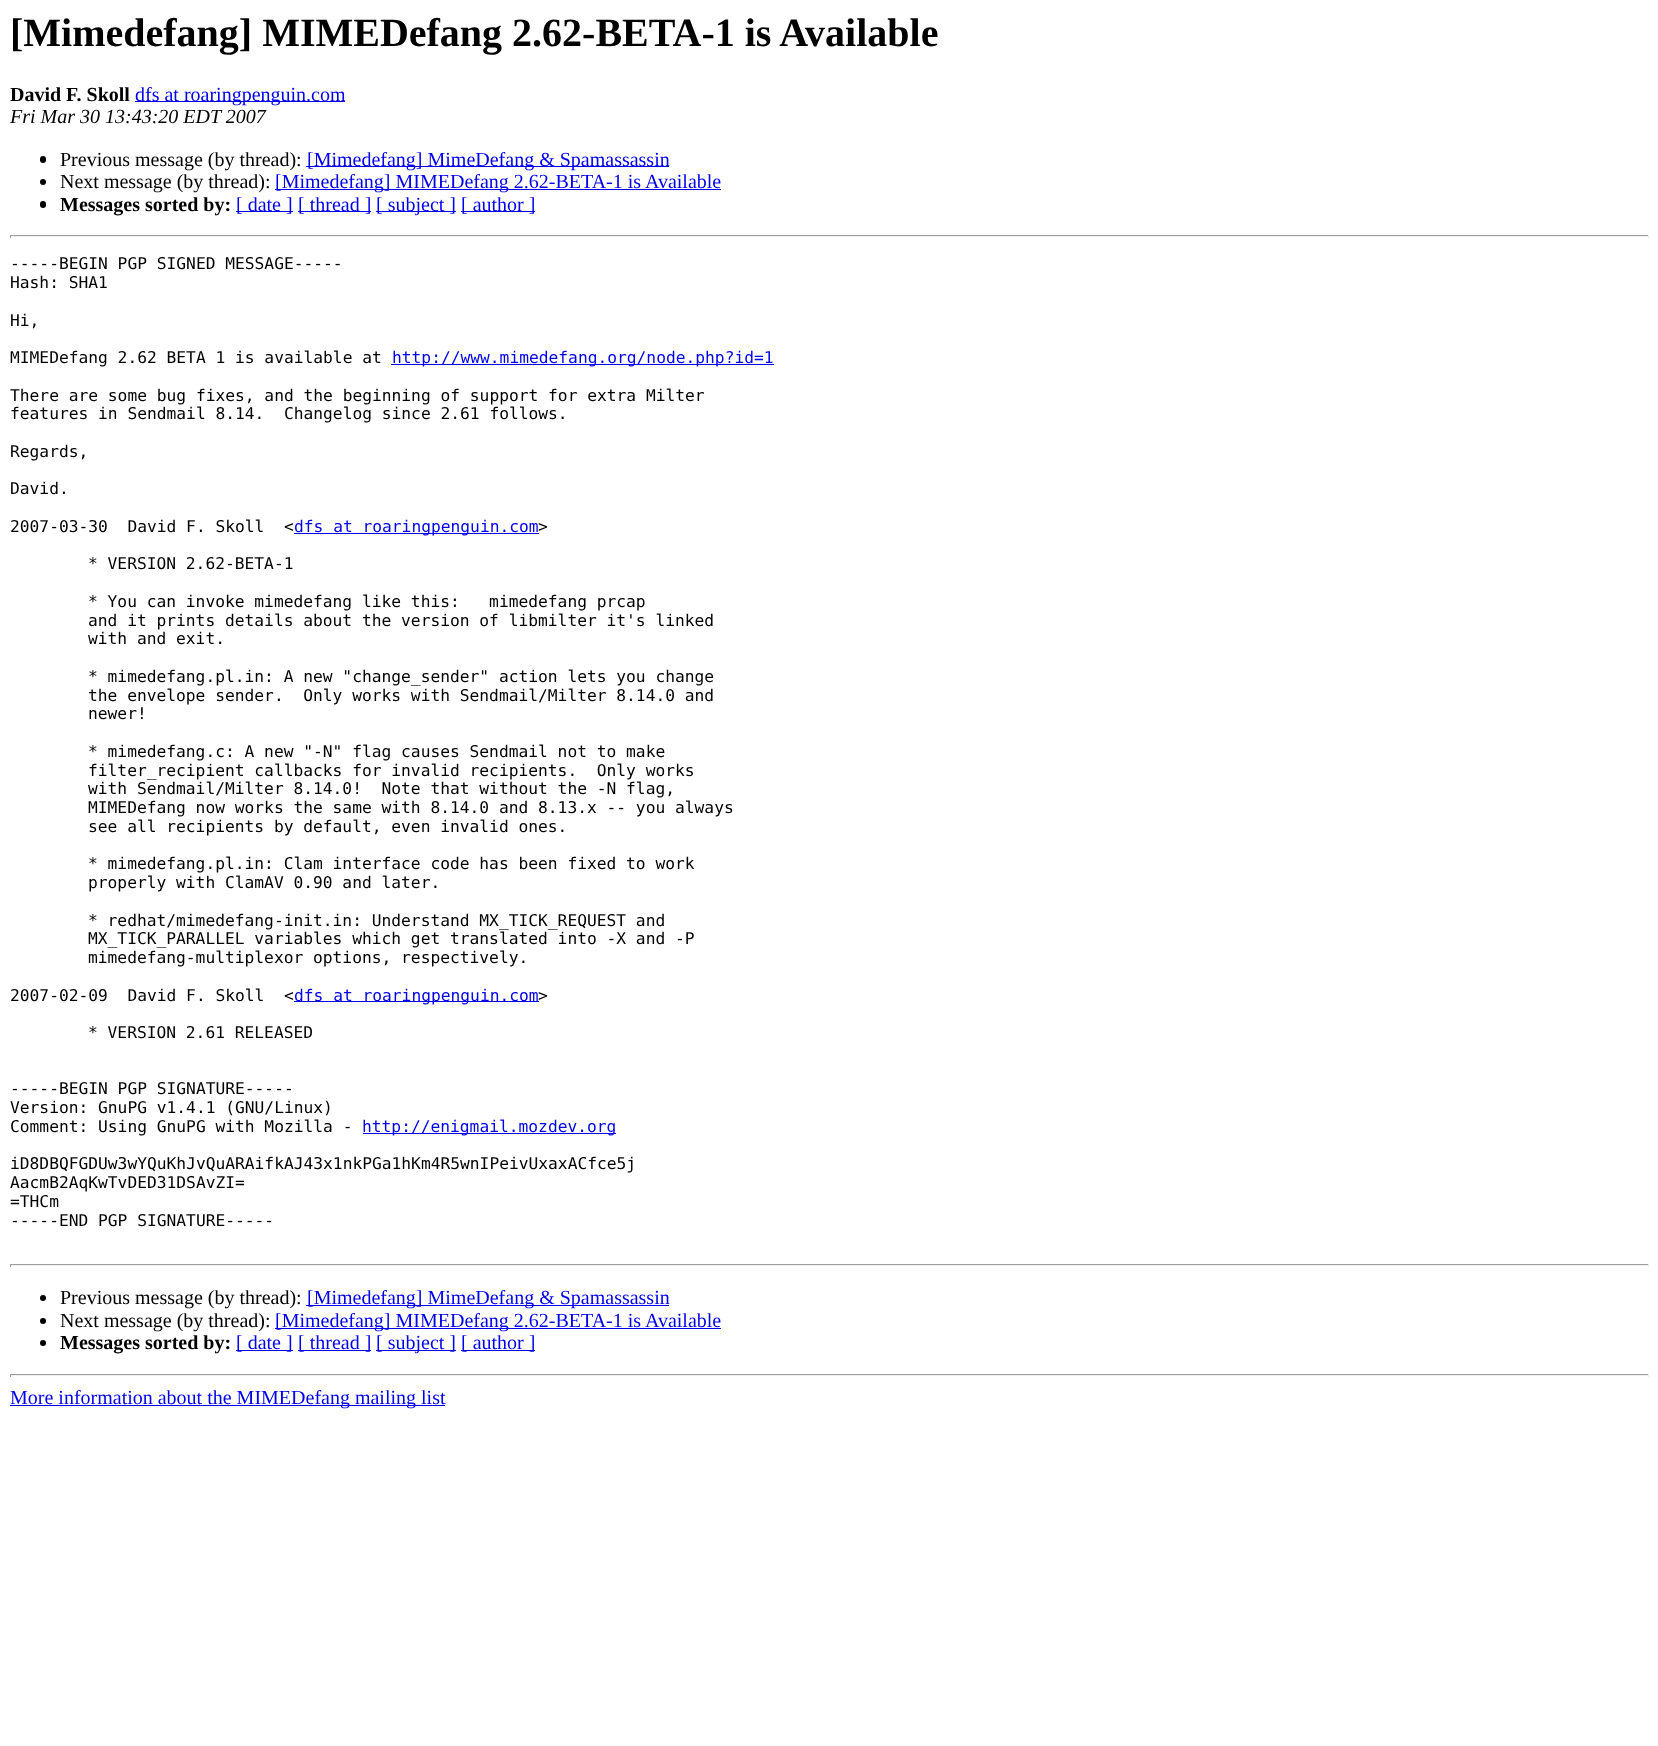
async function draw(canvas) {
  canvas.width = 1658;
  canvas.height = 1746;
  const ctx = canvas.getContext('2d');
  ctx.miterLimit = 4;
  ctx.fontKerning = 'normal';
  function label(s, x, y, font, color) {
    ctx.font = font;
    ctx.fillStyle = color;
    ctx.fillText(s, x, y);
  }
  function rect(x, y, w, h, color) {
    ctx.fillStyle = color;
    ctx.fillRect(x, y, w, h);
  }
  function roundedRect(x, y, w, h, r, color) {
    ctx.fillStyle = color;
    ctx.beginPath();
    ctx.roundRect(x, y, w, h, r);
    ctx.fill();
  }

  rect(0, 0, 1658, 1746, '#fff');
  label('[Mimedefang] MIMEDefang 2.62-BETA-1 is Available', 10, 46, 'bold 40px Liberation Serif', '#000');
  label('David F. Skoll', 10, 101, 'bold 20px Liberation Serif', '#000');
  rect(135, 101, 210, 1, '#00e');
  label('dfs at roaringpenguin.com', 135, 101, '20px Liberation Serif', '#00e');
  label('Fri Mar 30 13:43:20 EDT 2007', 10, 123, 'italic 20px Liberation Serif', '#000');
  roundedRect(40, 156, 6, 7, 3, '#000');
  label('Previous message (by thread):', 60, 166, '20px Liberation Serif', '#000');
  rect(306, 166, 363, 1, '#00e');
  label('[Mimedefang] MimeDefang & Spamassassin', 307, 166, '20px Liberation Serif', '#00e');
  ctx.fillStyle = '#000';
  ctx.beginPath();
  ctx.arc(43, 182, 3, 0, 2 * Math.PI);
  ctx.fill();
  label('Next message (by thread):', 60, 188, '20px Liberation Serif', '#000');
  rect(275, 189, 446, 1, '#00e');
  label('[Mimedefang] MIMEDefang 2.62-BETA-1 is Available', 275, 188, '20px Liberation Serif', '#00e');
  roundedRect(40, 201, 6, 7, 3, '#000');
  label('Messages sorted by:', 60, 211, 'bold 20px Liberation Serif', '#000');
  rect(236, 211, 57, 1, '#00e');
  label('[ date ]', 236, 211, '20px Liberation Serif', '#00e');
  rect(298, 211, 73, 1, '#00e');
  label('[ thread ]', 298, 211, '20px Liberation Serif', '#00e');
  rect(376, 211, 80, 1, '#00e');
  label('[ subject ]', 376, 211, '20px Liberation Serif', '#00e');
  rect(461, 211, 74, 1, '#00e');
  label('[ author ]', 461, 211, '20px Liberation Serif', '#00e');
  rect(10, 235, 1639, 1, '#9f9f9f');
  rect(1648, 235, 1, 3, '#eee');
  rect(10, 236, 1639, 1, '#eee');
  rect(10, 235, 1, 3, '#9f9f9f');
  label('-----BEGIN PGP SIGNED MESSAGE-----', 10, 269, '16.25px DejaVu Sans Mono', '#000');
  label('Hash: SHA1', 10, 288, '16.25px DejaVu Sans Mono', '#000');
  label('Hi,', 10, 326, '16.25px DejaVu Sans Mono', '#000');
  label('MIMEDefang 2.62 BETA 1 is available at', 10, 363, '16.25px DejaVu Sans Mono', '#000');
  rect(391, 364, 383, 1, '#00e');
  label('http://www.mimedefang.org/node.php?id=1', 392, 363, '16.25px DejaVu Sans Mono', '#00e');
  label('There are some bug fixes, and the beginning of support for extra Milter', 10, 401, '16.25px DejaVu Sans Mono', '#000');
  label('features in Sendmail 8.14.  Changelog since 2.61 follows.', 10, 419, '16.25px DejaVu Sans Mono', '#000');
  label('Regards,', 10, 457, '16.25px DejaVu Sans Mono', '#000');
  label('David.', 10, 494, '16.25px DejaVu Sans Mono', '#000');
  label('2007-03-30  David F. Skoll  <', 10, 532, '16.25px DejaVu Sans Mono', '#000');
  rect(294, 533, 245, 1, '#00e');
  label('dfs at roaringpenguin.com', 294, 532, '16.25px DejaVu Sans Mono', '#00e');
  label('>', 538, 532, '16.25px DejaVu Sans Mono', '#000');
  label('* VERSION 2.62-BETA-1', 88, 569, '16.25px DejaVu Sans Mono', '#000');
  label('* You can invoke mimedefang like this:   mimedefang prcap', 88, 607, '16.25px DejaVu Sans Mono', '#000');
  label('and it prints details about the version of libmilter it\'s linked', 88, 626, '16.25px DejaVu Sans Mono', '#000');
  label('with and exit.', 88, 644, '16.25px DejaVu Sans Mono', '#000');
  label('* mimedefang.pl.in: A new "change_sender" action lets you change', 88, 682, '16.25px DejaVu Sans Mono', '#000');
  label('the envelope sender.  Only works with Sendmail/Milter 8.14.0 and', 88, 701, '16.25px DejaVu Sans Mono', '#000');
  label('newer!', 88, 719, '16.25px DejaVu Sans Mono', '#000');
  label('* mimedefang.c: A new "-N" flag causes Sendmail not to make', 88, 757, '16.25px DejaVu Sans Mono', '#000');
  label('filter_recipient callbacks for invalid recipients.  Only works', 88, 776, '16.25px DejaVu Sans Mono', '#000');
  label('with Sendmail/Milter 8.14.0!  Note that without the -N flag,', 88, 794, '16.25px DejaVu Sans Mono', '#000');
  label('MIMEDefang now works the same with 8.14.0 and 8.13.x -- you always', 88, 813, '16.25px DejaVu Sans Mono', '#000');
  label('see all recipients by default, even invalid ones.', 88, 832, '16.25px DejaVu Sans Mono', '#000');
  label('* mimedefang.pl.in: Clam interface code has been fixed to work', 88, 869, '16.25px DejaVu Sans Mono', '#000');
  label('properly with ClamAV 0.90 and later.', 88, 888, '16.25px DejaVu Sans Mono', '#000');
  label('* redhat/mimedefang-init.in: Understand MX_TICK_REQUEST and', 88, 926, '16.25px DejaVu Sans Mono', '#000');
  label('MX_TICK_PARALLEL variables which get translated into -X and -P', 88, 944, '16.25px DejaVu Sans Mono', '#000');
  label('mimedefang-multiplexor options, respectively.', 88, 963, '16.25px DejaVu Sans Mono', '#000');
  label('2007-02-09  David F. Skoll  <', 10, 1001, '16.25px DejaVu Sans Mono', '#000');
  rect(294, 1001, 245, 1, '#00e');
  label('dfs at roaringpenguin.com', 294, 1001, '16.25px DejaVu Sans Mono', '#00e');
  label('>', 538, 1001, '16.25px DejaVu Sans Mono', '#000');
  label('* VERSION 2.61 RELEASED', 88, 1038, '16.25px DejaVu Sans Mono', '#000');
  label('-----BEGIN PGP SIGNATURE-----', 10, 1094, '16.25px DejaVu Sans Mono', '#000');
  label('Version: GnuPG v1.4.1 (GNU/Linux)', 10, 1113, '16.25px DejaVu Sans Mono', '#000');
  label('Comment: Using GnuPG with Mozilla -', 10, 1132, '16.25px DejaVu Sans Mono', '#000');
  rect(363, 1133, 253, 1, '#00e');
  label('http://enigmail.mozdev.org', 362, 1132, '16.25px DejaVu Sans Mono', '#00e');
  label('iD8DBQFGDUw3wYQuKhJvQuARAifkAJ43x1nkPGa1hKm4R5wnIPeivUxaxACfce5j', 10, 1169, '16.25px DejaVu Sans Mono', '#000');
  label('AacmB2AqKwTvDED31DSAvZI=', 10, 1188, '16.25px DejaVu Sans Mono', '#000');
  label('=THCm', 10, 1207, '16.25px DejaVu Sans Mono', '#000');
  label('-----END PGP SIGNATURE-----', 10, 1226, '16.25px DejaVu Sans Mono', '#000');
  rect(10, 1264, 1639, 1, '#9f9f9f');
  rect(1648, 1264, 1, 3, '#eee');
  rect(10, 1265, 1639, 1, '#eee');
  rect(10, 1264, 1, 3, '#9f9f9f');
  ctx.fillStyle = '#000';
  ctx.beginPath();
  ctx.arc(43, 1298, 3, 0, 2 * Math.PI);
  ctx.fill();
  label('Previous message (by thread):', 60, 1304, '20px Liberation Serif', '#000');
  rect(306, 1305, 363, 1, '#00e');
  label('[Mimedefang] MimeDefang & Spamassassin', 307, 1304, '20px Liberation Serif', '#00e');
  ctx.fillStyle = '#000';
  ctx.beginPath();
  ctx.arc(43, 1321, 3, 0, 2 * Math.PI);
  ctx.fill();
  label('Next message (by thread):', 60, 1327, '20px Liberation Serif', '#000');
  rect(275, 1328, 446, 1, '#00e');
  label('[Mimedefang] MIMEDefang 2.62-BETA-1 is Available', 275, 1327, '20px Liberation Serif', '#00e');
  ctx.fillStyle = '#000';
  ctx.beginPath();
  ctx.arc(43, 1343, 3, 0, 2 * Math.PI);
  ctx.fill();
  label('Messages sorted by:', 60, 1349, 'bold 20px Liberation Serif', '#000');
  rect(236, 1350, 57, 1, '#00e');
  label('[ date ]', 236, 1349, '20px Liberation Serif', '#00e');
  rect(298, 1350, 73, 1, '#00e');
  label('[ thread ]', 298, 1349, '20px Liberation Serif', '#00e');
  rect(376, 1350, 80, 1, '#00e');
  label('[ subject ]', 376, 1349, '20px Liberation Serif', '#00e');
  rect(461, 1350, 74, 1, '#00e');
  label('[ author ]', 461, 1349, '20px Liberation Serif', '#00e');
  rect(10, 1374, 1639, 1, '#9f9f9f');
  rect(1648, 1374, 1, 3, '#eee');
  rect(10, 1375, 1639, 1, '#eee');
  rect(10, 1374, 1, 3, '#9f9f9f');
  rect(10, 1405, 435, 1, '#00e');
  label('More information about the MIMEDefang mailing list', 10, 1404, '20px Liberation Serif', '#00e');
}

draw(document.querySelector('canvas'));
